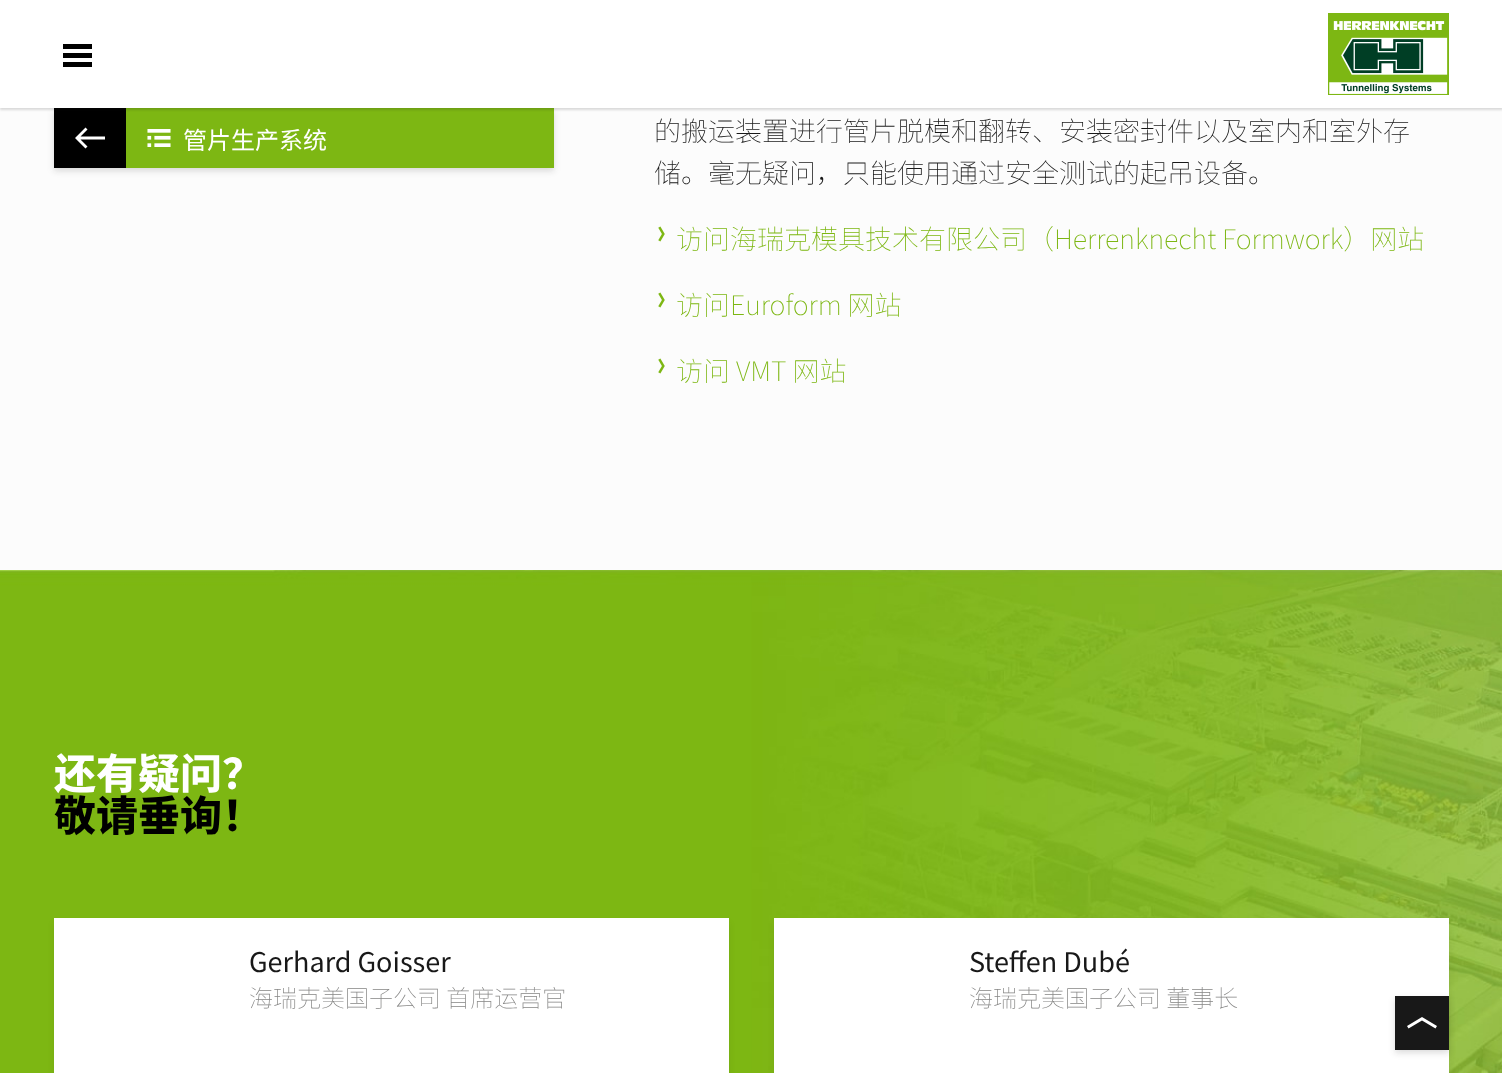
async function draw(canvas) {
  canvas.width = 1502;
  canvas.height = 1073;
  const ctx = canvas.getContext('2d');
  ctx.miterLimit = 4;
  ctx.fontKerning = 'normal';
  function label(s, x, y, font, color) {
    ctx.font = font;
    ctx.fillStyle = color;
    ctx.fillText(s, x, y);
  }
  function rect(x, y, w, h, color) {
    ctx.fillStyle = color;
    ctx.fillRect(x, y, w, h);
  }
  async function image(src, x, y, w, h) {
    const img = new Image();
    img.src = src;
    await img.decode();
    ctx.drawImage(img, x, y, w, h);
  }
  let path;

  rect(0, 0, 1502, 1073, '#fcfcfc');
  ctx.fillStyle = '#17171726';
  ctx.filter = 'blur(3px)';
  ctx.beginPath();
  ctx.rect(54, 111, 500, 60);
  ctx.fill();
  ctx.filter = 'none';
  rect(54, 108, 72, 60, '#000');
  rect(126, 108, 428, 60, '#7db713');
  ctx.fillStyle = '#17171726';
  ctx.filter = 'blur(1px)';
  ctx.beginPath();
  ctx.rect(0, 2, 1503, 108);
  ctx.fill();
  ctx.filter = 'none';
  rect(0, 0, 1502, 108, '#fff');
  rect(63, 44, 29, 5, '#000');
  rect(63, 53, 29, 5, '#000');
  rect(63, 62, 29, 5, '#000');
  await image('assets/img1.png', 1328, 13, 121, 82);
  label('的搬运装置进行管片脱模和翻转、安装密封件以及室内和室外存', 654, 141, '100 27px Noto Sans SC', '#181818');
  label('储。毫无疑问，只能使用通过安全测试的起吊设备。', 654, 183, '100 27px Noto Sans SC', '#181818');
  await image('assets/img2.png', 658, 226, 7, 16);
  label('访问海瑞克模具技术有限公司（Herrenknecht Formwork）网站', 676, 249, '100 27px Noto Sans SC', '#7db713');
  await image('assets/img2.png', 658, 292, 7, 16);
  label('访问Euroform 网站', 676, 315, '100 27px Noto Sans SC', '#7db713');
  await image('assets/img2.png', 658, 358, 7, 16);
  label('访问 VMT 网站', 676, 381, '100 27px Noto Sans SC', '#7db713');
  await image('assets/img3.png', 0, 570, 1502, 503);
  label('还有疑问？', 54, 789, '800 42px Noto Sans SC', '#fff');
  label('敬请垂询！', 54, 831, '800 42px Noto Sans SC', '#000');
  ctx.fillStyle = '#17171714';
  ctx.filter = 'blur(3px)';
  ctx.beginPath();
  ctx.rect(54, 923, 675, 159);
  ctx.fill();
  ctx.filter = 'none';
  rect(54, 918, 675, 155, '#fff');
  label('Gerhard Goisser', 249, 972, '27px Noto Sans SC', '#181818');
  label('海瑞克美国子公司 首席运营官', 249, 1007, '100 24px Noto Sans SC', '#868685');
  ctx.fillStyle = '#17171714';
  ctx.filter = 'blur(3px)';
  ctx.beginPath();
  ctx.rect(774, 923, 675, 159);
  ctx.fill();
  ctx.filter = 'none';
  rect(774, 918, 675, 155, '#fff');
  label('Steffen Dubé', 969, 972, '27px Noto Sans SC', '#181818');
  label('海瑞克美国子公司 董事长', 969, 1007, '100 24px Noto Sans SC', '#868685');
  ctx.fillStyle = '#17171726';
  ctx.filter = 'blur(3px)';
  ctx.beginPath();
  ctx.rect(1395, 999, 54, 54);
  ctx.fill();
  ctx.filter = 'none';
  rect(1395, 996, 54, 54, '#181818');
  ctx.fillStyle = '#fff';
  path = new Path2D('M1422 1017L1407 1026L1408.5 1028.5L1422 1020.5L1435.5 1028.5L1437 1026Z');
  ctx.fill(path, 'evenodd');
  path = new Path2D('M105 136.5H80.5L87.5 129.5L85.5 127.5L75 138L85.5 148.5L87.5 146.5L80.5 139.5H105Z');
  ctx.fill(path);
  await image('assets/img4.png', 147, 129, 24, 18);
  label('管片生产系统', 183, 149, '24px Noto Sans SC', '#fff');
}

draw(document.querySelector('canvas'));
